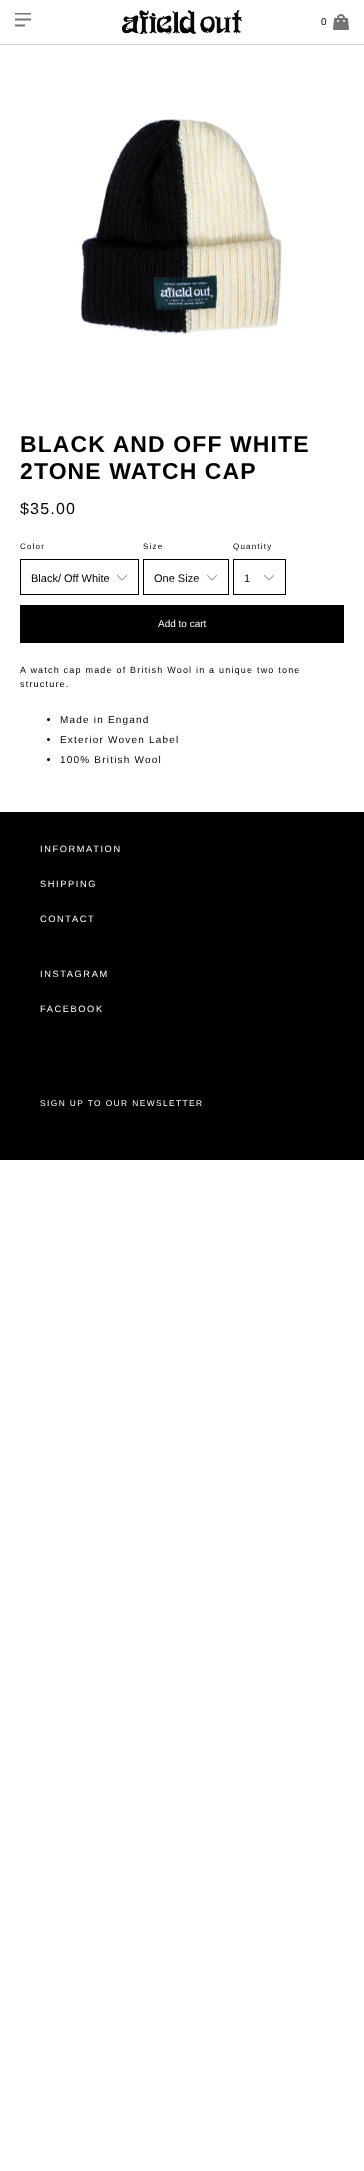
async function draw(canvas) {
  canvas.width = 364;
  canvas.height = 2171;
  const ctx = canvas.getContext('2d');
  ctx.miterLimit = 4;
  ctx.fontKerning = 'normal';
  function label(s, x, y, font, color) {
    ctx.font = font;
    ctx.fillStyle = color;
    ctx.fillText(s, x, y);
  }
  function rect(x, y, w, h, color) {
    ctx.fillStyle = color;
    ctx.fillRect(x, y, w, h);
  }
  async function image(src, x, y, w, h) {
    const img = new Image();
    img.src = src;
    await img.decode();
    ctx.drawImage(img, x, y, w, h);
  }

  rect(0, 0, 364, 2171, '#fff');
  rect(0, 44, 364, 1, '#d5d3d3');
  await image('assets/img1.png', 15, 13, 16, 14);
  await image('assets/img2.png', 122, 10, 120, 24);
  ctx.letterSpacing = '1.2px';
  label('0', 321, 25, '10px Liberation Sans', '#000');
  await image('assets/img3.png', 333, 14, 16, 16);
  await image('assets/img4.png', 79, 119, 203, 216);
  ctx.letterSpacing = '1.1px';
  label('BLACK AND OFF WHITE', 20, 452, 'bold 23px Liberation Sans', '#000');
  label('2TONE WATCH CAP', 20, 479, 'bold 23px Liberation Sans', '#000');
  ctx.letterSpacing = '1.2px';
  label('$35.00', 20, 514, '16px Liberation Sans', '#000');
  label('Color', 20, 549, '8px Liberation Sans', '#000');
  await image('assets/img5.png', 116, 574, 12, 7);
  ctx.strokeStyle = '#000';
  ctx.strokeRect(20.5, 559.5, 118, 35);
  ctx.letterSpacing = '0px';
  label('Black/ Off White', 31, 582, '11px Liberation Sans', '#000');
  ctx.letterSpacing = '1.2px';
  label('Size', 143, 549, '8px Liberation Sans', '#000');
  await image('assets/img5.png', 206, 574, 12, 7);
  ctx.strokeRect(143.5, 559.5, 85, 35);
  ctx.letterSpacing = '0px';
  label('One Size', 154, 582, '11px Liberation Sans', '#000');
  ctx.letterSpacing = '1.2px';
  label('Quantity', 233, 549, '8px Liberation Sans', '#000');
  await image('assets/img5.png', 263, 574, 12, 7);
  ctx.strokeRect(233.5, 559.5, 52, 35);
  ctx.letterSpacing = '0px';
  label('1', 244, 582, '11px Liberation Sans', '#000');
  rect(20, 605, 324, 38, '#000');
  label('Add to cart', 158, 627, '10px Liberation Sans', '#fff');
  ctx.letterSpacing = '1.2px';
  label('A watch cap made of British Wool in a unique two tone', 20, 673, '9px Liberation Sans', '#000');
  label('structure.', 20, 687, '9px Liberation Sans', '#000');
  ctx.beginPath();
  ctx.arc(48.5, 719.5, 1.5, 0, 2 * Math.PI);
  ctx.fill();
  label('Made in Engand', 60, 723, '10px Liberation Sans', '#000');
  ctx.beginPath();
  ctx.arc(48.5, 739.5, 1.5, 0, 2 * Math.PI);
  ctx.fill();
  label('Exterior Woven Label', 60, 743, '10px Liberation Sans', '#000');
  ctx.beginPath();
  ctx.arc(48.5, 759.5, 1.5, 0, 2 * Math.PI);
  ctx.fill();
  label('100% British Wool', 60, 763, '10px Liberation Sans', '#000');
  rect(0, 812, 364, 348, '#000');
  ctx.letterSpacing = '1.6px';
  label('INFORMATION', 40, 852, '9.25px Liberation Sans', '#fff');
  label('SHIPPING', 40, 887, '9.25px Liberation Sans', '#fff');
  label('CONTACT', 40, 922, '9.25px Liberation Sans', '#fff');
  label('INSTAGRAM', 40, 977, '9.25px Liberation Sans', '#fff');
  label('FACEBOOK', 40, 1012, '9.25px Liberation Sans', '#fff');
  ctx.letterSpacing = '1.4px';
  label('SIGN UP TO OUR NEWSLETTER', 40, 1106, '8.4px Liberation Sans', '#fff');
}

draw(document.querySelector('canvas'));
